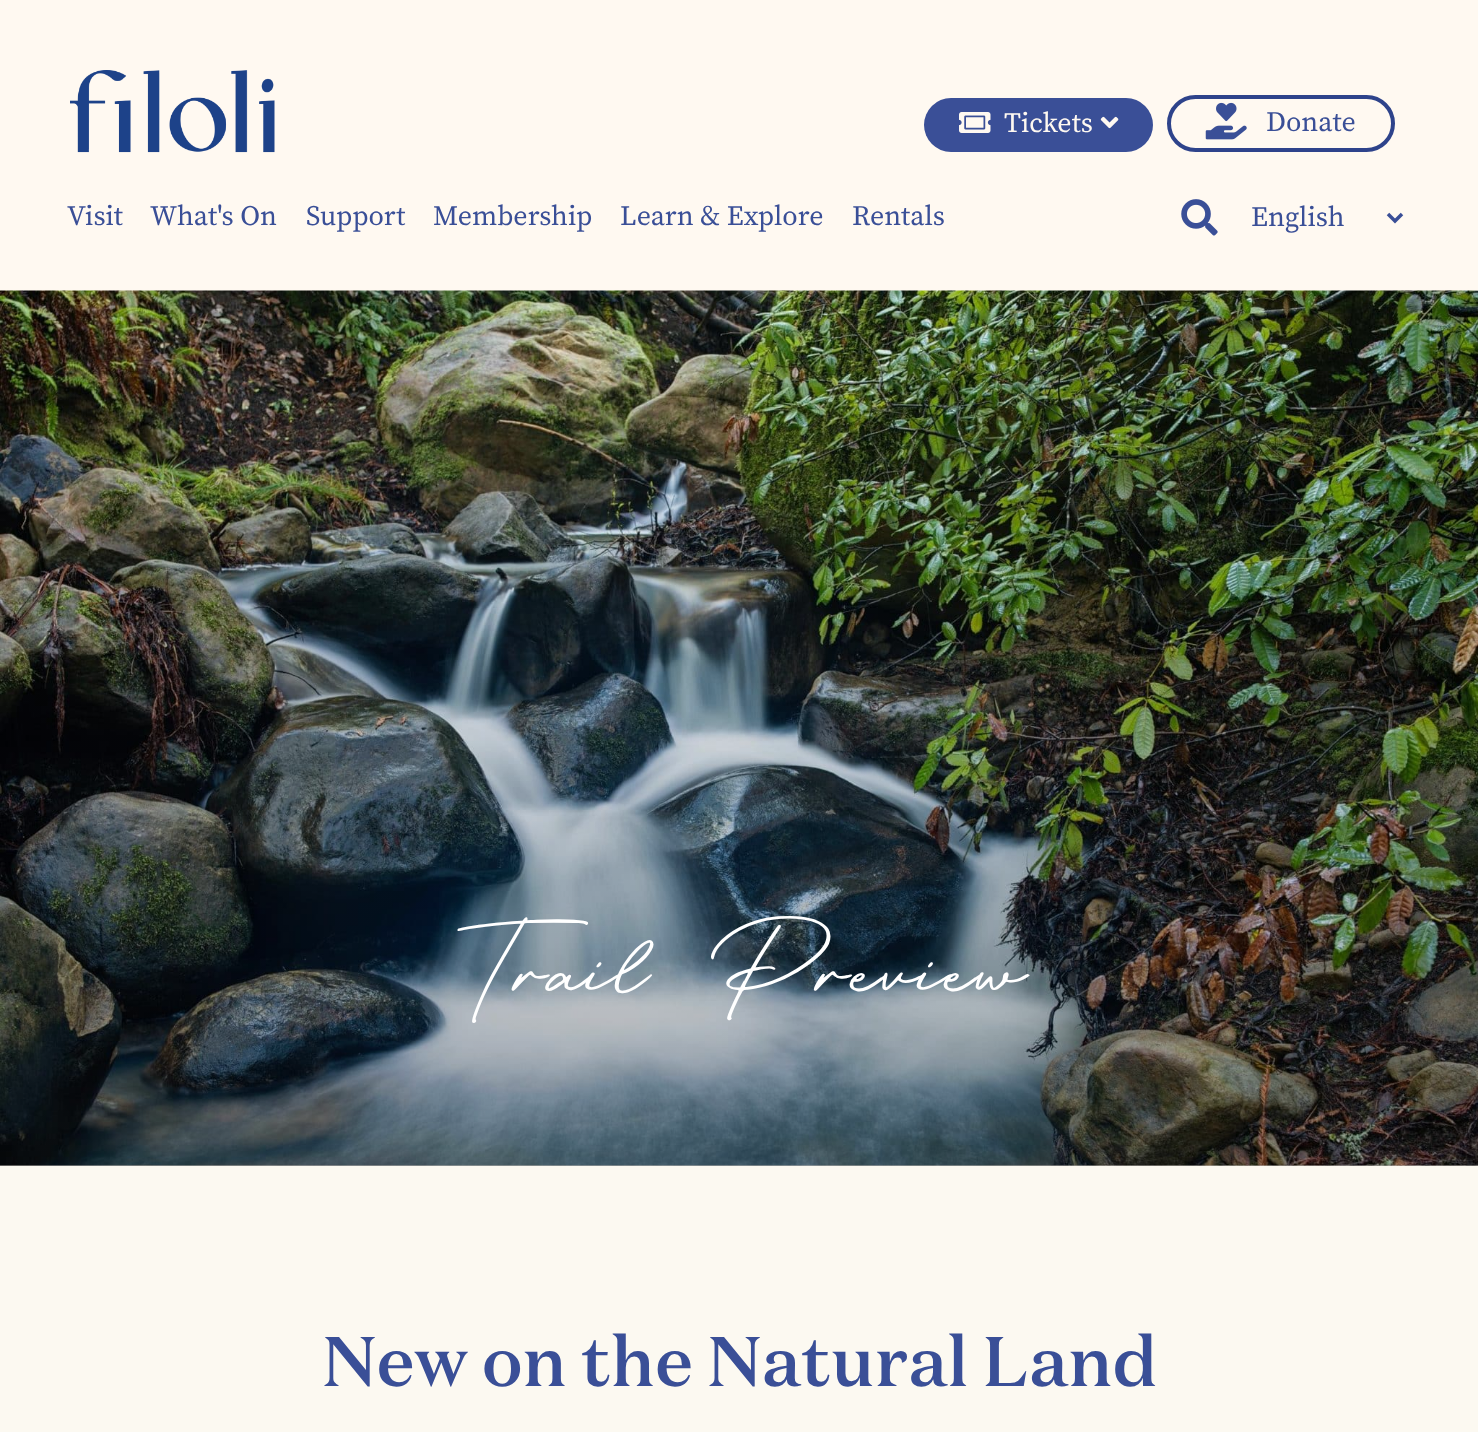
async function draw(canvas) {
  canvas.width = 1478;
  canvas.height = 1432;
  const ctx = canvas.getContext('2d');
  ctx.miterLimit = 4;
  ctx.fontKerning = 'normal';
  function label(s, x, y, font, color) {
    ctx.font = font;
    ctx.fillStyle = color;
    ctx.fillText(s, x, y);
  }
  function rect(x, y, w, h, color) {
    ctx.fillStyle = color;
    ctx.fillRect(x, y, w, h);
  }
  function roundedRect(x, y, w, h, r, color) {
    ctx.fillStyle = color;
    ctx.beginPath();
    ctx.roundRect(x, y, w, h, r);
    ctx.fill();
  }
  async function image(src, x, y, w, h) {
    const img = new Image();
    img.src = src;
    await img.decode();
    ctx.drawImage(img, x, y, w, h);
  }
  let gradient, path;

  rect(0, 0, 1478, 1432, '#fff9f1');
  await image('assets/img1.png', 70, 70, 205, 83);
  roundedRect(924, 98, 229, 54, 27, '#3a4f97');
  await image('assets/img2.png', 959, 112, 32, 21);
  label('Tickets', 1004, 132, '28px Source Serif Pro', '#fff9f1');
  await image('assets/img3.png', 1100, 116, 19, 13);
  ctx.beginPath();
  ctx.roundRect(1169, 97, 224, 53, 26.5);
  ctx.strokeStyle = '#2e438b';
  ctx.lineWidth = 4;
  ctx.stroke();
  await image('assets/img4.png', 1205, 102, 42, 38);
  label('Donate', 1266, 131, '28px Source Serif Pro', '#3a4f97');
  label('Visit', 67, 225, '28px Source Serif Pro', '#3a4f97');
  label('What\'s On', 150, 225, '28px Source Serif Pro', '#3a4f97');
  label('Support', 306, 225, '28px Source Serif Pro', '#3a4f97');
  label('Membership', 433, 225, '28px Source Serif Pro', '#3a4f97');
  label('Learn & Explore', 620, 225, '28px Source Serif Pro', '#3a4f97');
  label('Rentals', 852, 225, '28px Source Serif Pro', '#3a4f97');
  await image('assets/img5.png', 1181, 199, 37, 37);
  path = new Path2D('M1388 214L1395 221L1402 214');
  ctx.strokeStyle = '#3a4f97';
  ctx.lineWidth = 3.5;
  ctx.stroke(path);
  label('English', 1251, 226, '28px Source Serif Pro', '#3a4f97');
  await image('assets/img6.png', 0, 290, 1478, 876);
  gradient = ctx.createLinearGradient(739, 290, 739, 1166);
  gradient.addColorStop(0, '#00000000');
  gradient.addColorStop(1, '#00000047');
  ctx.fillStyle = gradient;
  ctx.fillRect(0, 357, 1478, 809);
  label('Trail Preview', 454, 1022, '149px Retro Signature', '#fff');
  rect(0, 1166, 1478, 266, '#fcf9f1');
  label('New on the Natural Land', 322, 1386, '500 70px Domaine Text', '#3a4f97');
}

draw(document.querySelector('canvas'));
